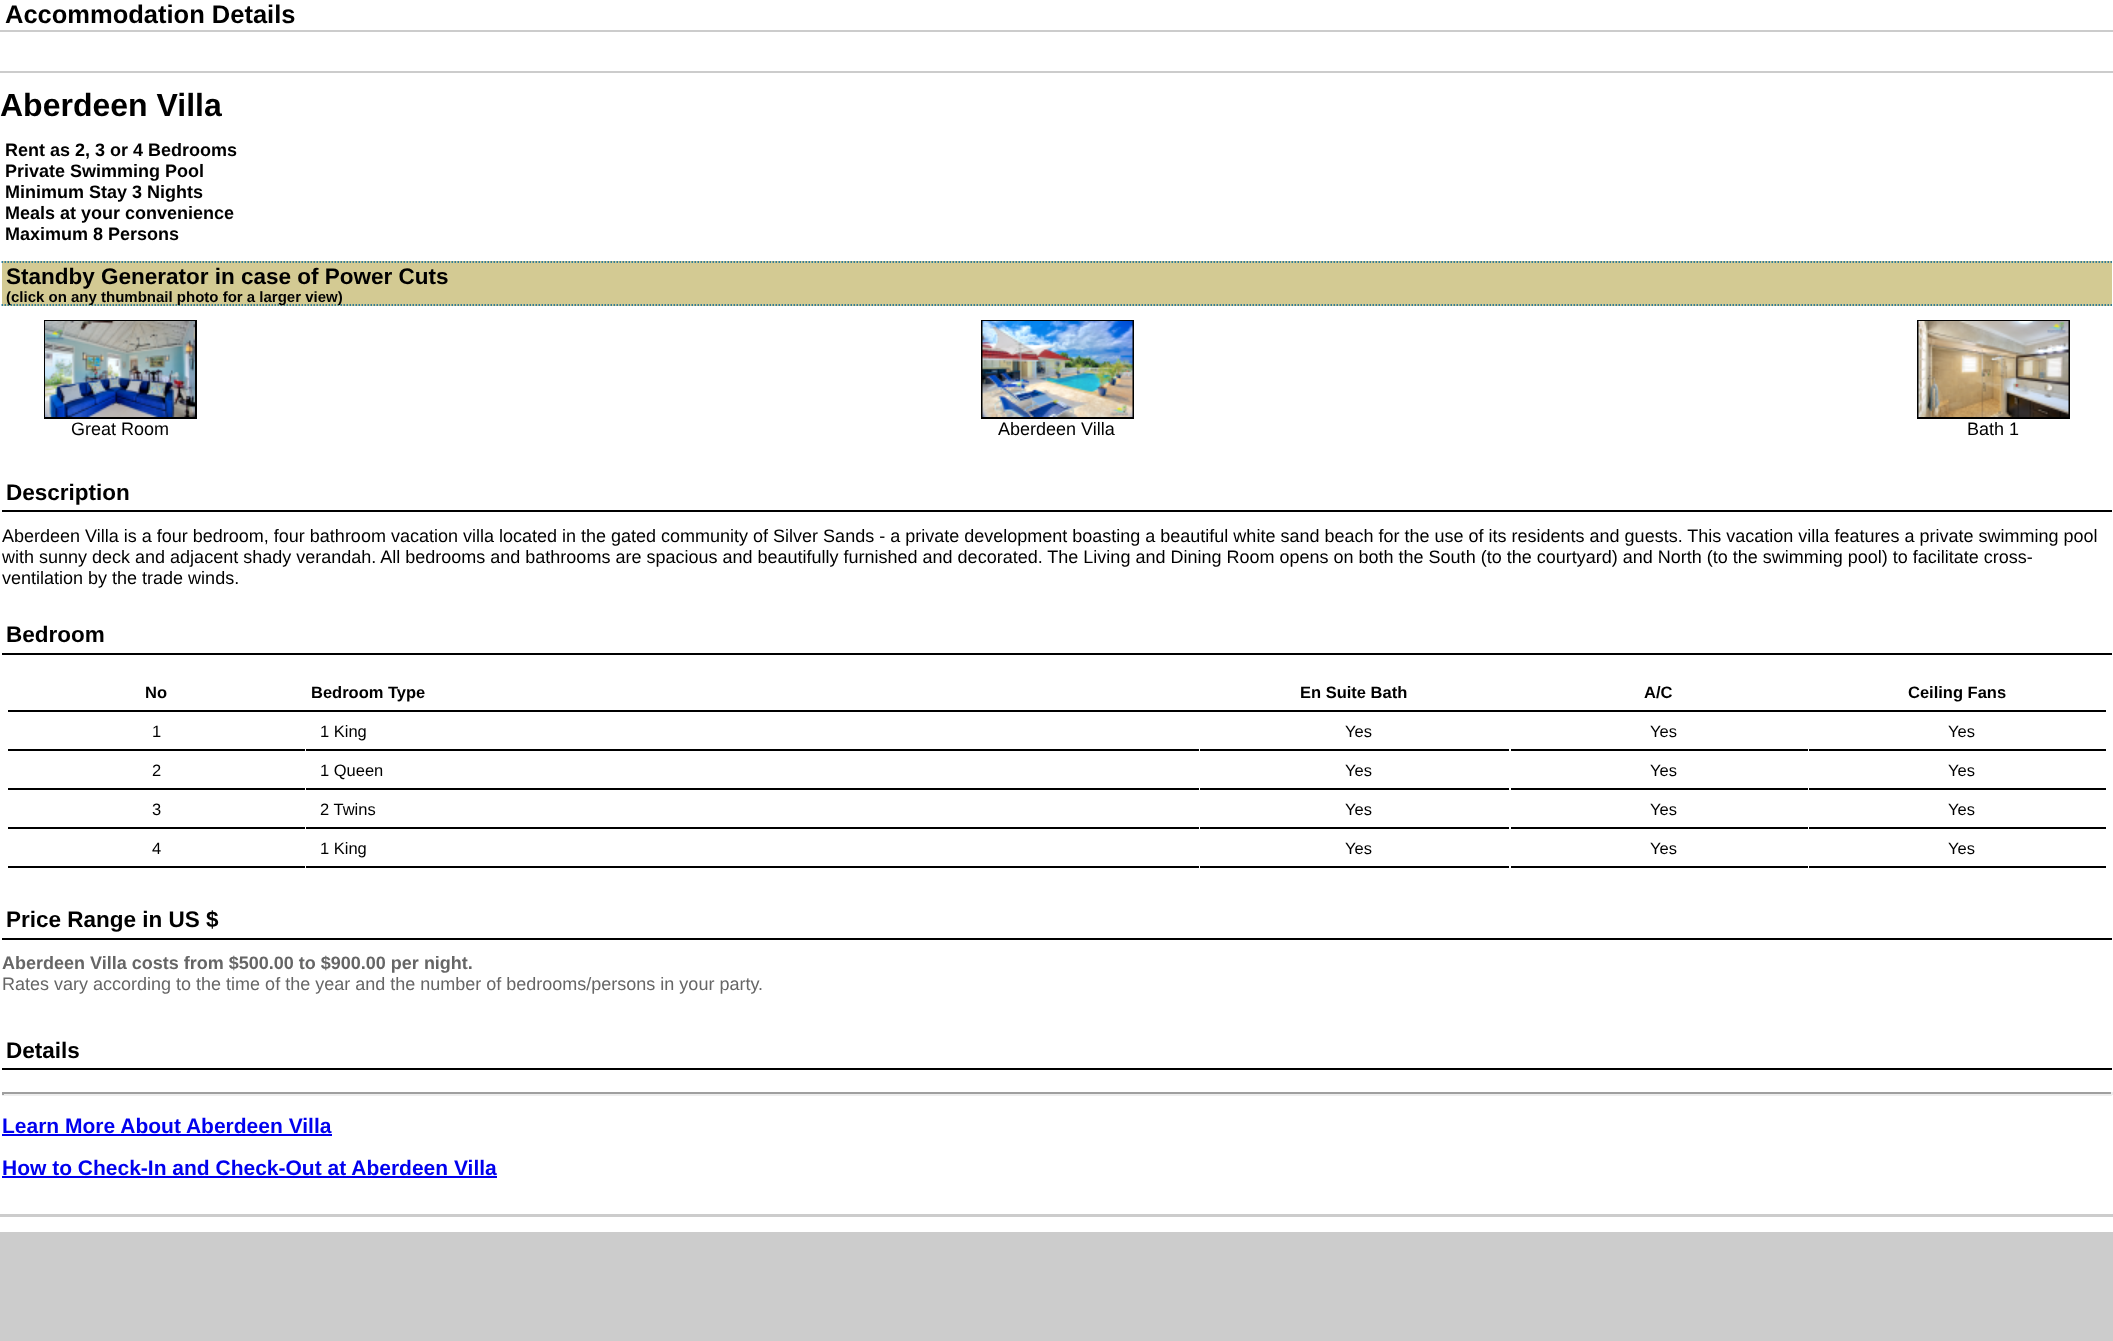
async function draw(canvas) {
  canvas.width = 2113;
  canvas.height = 1341;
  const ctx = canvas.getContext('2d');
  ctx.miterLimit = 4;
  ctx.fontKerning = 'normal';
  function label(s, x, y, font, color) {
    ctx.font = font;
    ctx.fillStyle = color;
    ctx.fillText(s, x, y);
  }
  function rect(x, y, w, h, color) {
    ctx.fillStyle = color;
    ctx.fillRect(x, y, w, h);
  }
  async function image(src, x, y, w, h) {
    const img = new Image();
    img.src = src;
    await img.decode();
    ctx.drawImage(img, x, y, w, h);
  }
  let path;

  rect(0, 0, 2113, 1341, '#ccc');
  rect(0, 0, 2113, 1232, '#fff');
  rect(0, 30, 2113, 2, '#ccc');
  label('Accommodation Details', 5, 23, 'bold 25.5px Liberation Sans', '#000');
  rect(0, 71, 2113, 2, '#ccc');
  label('Aberdeen Villa', 0, 116, 'bold 32px Liberation Sans', '#000');
  label('Rent as 2, 3 or 4 Bedrooms', 5, 156, 'bold 18px Liberation Sans', '#000');
  label('Private Swimming Pool', 5, 177, 'bold 18px Liberation Sans', '#000');
  label('Minimum Stay 3 Nights', 5, 198, 'bold 18px Liberation Sans', '#000');
  label('Meals at your convenience', 5, 219, 'bold 18px Liberation Sans', '#000');
  label('Maximum 8 Persons', 5, 240, 'bold 18px Liberation Sans', '#000');
  rect(2, 261, 2110, 45, '#d3ca93');
  path = new Path2D('M1.5 262H2112');
  ctx.strokeStyle = '#069';
  ctx.lineWidth = 1.5;
  ctx.setLineDash([1.5, 1.5]);
  ctx.stroke(path);
  path = new Path2D('M1.5 305H2112');
  ctx.stroke(path);
  label('Standby Generator in case of Power Cuts', 6, 284, 'bold 22.5px Liberation Sans', '#000');
  label('(click on any thumbnail photo for a larger view)', 6, 302, 'bold 15px Liberation Sans', '#000');
  ctx.strokeStyle = '#000';
  ctx.lineWidth = 2;
  ctx.setLineDash([]);
  ctx.strokeRect(45, 321, 151, 97);
  await image('assets/img1.png', 45, 321, 150, 96);
  ctx.strokeRect(982, 321, 151, 97);
  await image('assets/img2.png', 982, 321, 151, 96);
  ctx.strokeRect(1918, 321, 151, 97);
  await image('assets/img3.png', 1918, 321, 151, 96);
  label('Great Room', 71, 435, '18px Liberation Sans', '#000');
  label('Aberdeen Villa', 998, 435, '18px Liberation Sans', '#000');
  label('Bath 1', 1967, 435, '18px Liberation Sans', '#000');
  rect(2, 510, 2110, 2, '#000');
  label('Description', 6, 500, 'bold 22.5px Liberation Sans', '#000');
  label('Aberdeen Villa is a four bedroom, four bathroom vacation villa located in the gated community of Silver Sands - a private development boasting a beautiful white sand beach for the use of its residents and guests. This vacation villa features a private swimming pool', 2, 542, '18px Liberation Sans', '#000');
  label('with sunny deck and adjacent shady verandah. All bedrooms and bathrooms are spacious and beautifully furnished and decorated. The Living and Dining Room opens on both the South (to the courtyard) and North (to the swimming pool) to facilitate cross-', 2, 563, '18px Liberation Sans', '#000');
  label('ventilation by the trade winds.', 2, 584, '18px Liberation Sans', '#000');
  rect(2, 653, 2110, 2, '#000');
  label('Bedroom', 6, 642, 'bold 22.5px Liberation Sans', '#000');
  rect(8, 710, 2098, 2, '#000');
  label('No', 145, 698, 'bold 16.5px Liberation Sans', '#000');
  label('Bedroom Type', 311, 698, 'bold 16.5px Liberation Sans', '#000');
  label('En Suite Bath', 1300, 698, 'bold 16.5px Liberation Sans', '#000');
  label('A/C', 1644, 698, 'bold 16.5px Liberation Sans', '#000');
  label('Ceiling Fans', 1908, 698, 'bold 16.5px Liberation Sans', '#000');
  rect(8, 749, 297, 2, '#000');
  label('1', 152, 737, '16.5px Liberation Sans', '#000');
  rect(306, 749, 893, 2, '#000');
  label('1 King', 320, 737, '16.5px Liberation Sans', '#000');
  rect(1200, 749, 309, 2, '#000');
  label('Yes', 1345, 737, '16.5px Liberation Sans', '#000');
  rect(1511, 749, 297, 2, '#000');
  label('Yes', 1650, 737, '16.5px Liberation Sans', '#000');
  rect(1809, 749, 297, 2, '#000');
  label('Yes', 1948, 737, '16.5px Liberation Sans', '#000');
  rect(8, 788, 297, 2, '#000');
  label('2', 152, 776, '16.5px Liberation Sans', '#000');
  rect(306, 788, 893, 2, '#000');
  label('1 Queen', 320, 776, '16.5px Liberation Sans', '#000');
  rect(1200, 788, 309, 2, '#000');
  label('Yes', 1345, 776, '16.5px Liberation Sans', '#000');
  rect(1511, 788, 297, 2, '#000');
  label('Yes', 1650, 776, '16.5px Liberation Sans', '#000');
  rect(1809, 788, 297, 2, '#000');
  label('Yes', 1948, 776, '16.5px Liberation Sans', '#000');
  rect(8, 827, 297, 2, '#000');
  label('3', 152, 815, '16.5px Liberation Sans', '#000');
  rect(306, 827, 893, 2, '#000');
  label('2 Twins', 320, 815, '16.5px Liberation Sans', '#000');
  rect(1200, 827, 309, 2, '#000');
  label('Yes', 1345, 815, '16.5px Liberation Sans', '#000');
  rect(1511, 827, 297, 2, '#000');
  label('Yes', 1650, 815, '16.5px Liberation Sans', '#000');
  rect(1809, 827, 297, 2, '#000');
  label('Yes', 1948, 815, '16.5px Liberation Sans', '#000');
  rect(8, 866, 297, 2, '#000');
  label('4', 152, 854, '16.5px Liberation Sans', '#000');
  rect(306, 866, 893, 2, '#000');
  label('1 King', 320, 854, '16.5px Liberation Sans', '#000');
  rect(1200, 866, 309, 2, '#000');
  label('Yes', 1345, 854, '16.5px Liberation Sans', '#000');
  rect(1511, 866, 297, 2, '#000');
  label('Yes', 1650, 854, '16.5px Liberation Sans', '#000');
  rect(1809, 866, 297, 2, '#000');
  label('Yes', 1948, 854, '16.5px Liberation Sans', '#000');
  rect(2, 938, 2110, 2, '#000');
  label('Price Range in US $', 6, 927, 'bold 22.5px Liberation Sans', '#000');
  label('Aberdeen Villa costs from $500.00 to $900.00 per night.', 2, 969, 'bold 18px Liberation Sans', '#666');
  label('Rates vary according to the time of the year and the number of bedrooms/persons in your party.', 2, 990, '18px Liberation Sans', '#666');
  rect(2, 1068, 2110, 2, '#000');
  label('Details', 6, 1058, 'bold 22.5px Liberation Sans', '#000');
  rect(2, 1092, 2110, 2, '#9f9f9f');
  rect(2111, 1092, 2, 3, '#eee');
  rect(2, 1094, 2110, 2, '#eee');
  rect(2, 1092, 2, 3, '#9f9f9f');
  label('Learn More About Aberdeen Villa', 2, 1133, 'bold 21px Liberation Sans', '#00e');
  rect(2, 1134, 330, 2, '#00e');
  label('How to Check-In and Check-Out at Aberdeen Villa', 2, 1175, 'bold 21px Liberation Sans', '#00e');
  rect(2, 1176, 495, 2, '#00e');
  rect(0, 1214, 2113, 3, '#ccc');
}

draw(document.querySelector('canvas'));
